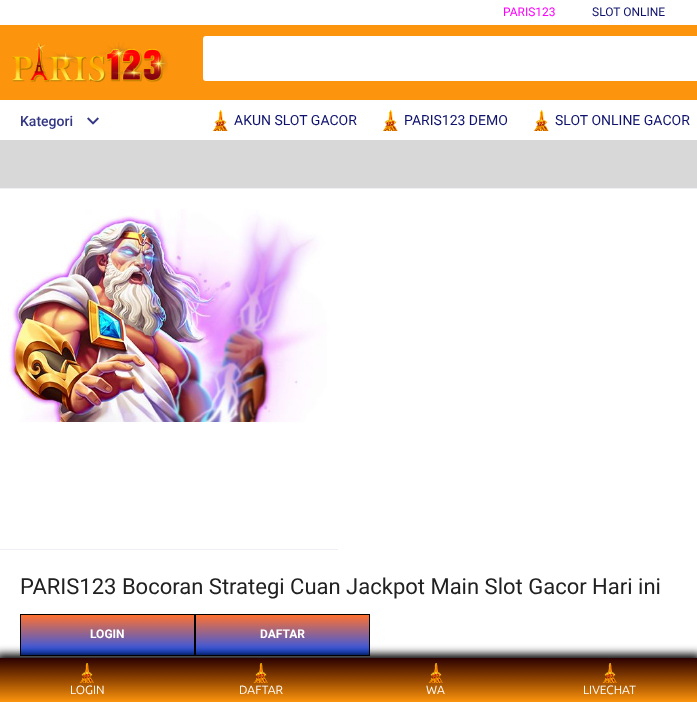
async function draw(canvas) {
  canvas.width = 697;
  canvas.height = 702;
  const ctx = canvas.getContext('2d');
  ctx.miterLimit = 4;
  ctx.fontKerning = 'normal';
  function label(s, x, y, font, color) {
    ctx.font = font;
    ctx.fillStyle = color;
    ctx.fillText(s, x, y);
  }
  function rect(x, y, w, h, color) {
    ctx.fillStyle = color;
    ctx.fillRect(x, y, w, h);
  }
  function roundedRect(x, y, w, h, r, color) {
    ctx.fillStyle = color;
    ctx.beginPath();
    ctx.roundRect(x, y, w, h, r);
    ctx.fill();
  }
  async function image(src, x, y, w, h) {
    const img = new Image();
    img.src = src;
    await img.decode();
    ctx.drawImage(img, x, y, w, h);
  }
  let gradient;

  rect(0, 0, 697, 702, '#d8d8d8');
  rect(0, 0, 697, 140, '#fff');
  label('PARIS123', 503, 16, '12px Roboto', '#f0f');
  label('SLOT ONLINE', 592, 16, '12px Roboto', '#0f136d');
  rect(0, 25, 697, 75, '#fc940d');
  await image('assets/img1.png', 12, 42, 156, 40);
  roundedRect(203, 36, 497, 45, 3, '#fff');
  label('Kategori', 20, 126, '500 14px Roboto', '#333683');
  await image('assets/img2.png', 87, 117, 12, 8);
  await image('assets/img3.png', 212, 110, 16, 21);
  label('AKUN SLOT GACOR', 234, 125, '14px Roboto', '#0f136d');
  await image('assets/img4.png', 382, 110, 16, 21);
  label('PARIS123 DEMO', 404, 125, '14px Roboto', '#0f136d');
  await image('assets/img3.png', 533, 110, 16, 21);
  label('SLOT ONLINE GACOR', 555, 125, '14px Roboto', '#0f136d');
  rect(0, 188, 697, 1, '#eff0f5');
  rect(0, 189, 697, 469, '#fff');
  rect(0, 549, 338, 1, '#eff0f5');
  await image('assets/img5.png', 8, 209, 319, 213);
  label('PARIS123 Bocoran Strategi Cuan Jackpot Main Slot Gacor Hari ini', 20, 594, '22px Roboto', '#212121');
  gradient = ctx.createLinearGradient(108, 615, 108, 655);
  gradient.addColorStop(0, '#ff712f');
  gradient.addColorStop(1, '#1554ff');
  ctx.fillStyle = gradient;
  ctx.fillRect(21, 615, 173, 40);
  ctx.strokeStyle = '#000';
  ctx.strokeRect(20.5, 614.5, 174, 41);
  label('LOGIN', 90, 638, 'bold 12px Roboto', '#fff');
  gradient = ctx.createLinearGradient(283, 615, 283, 655);
  gradient.addColorStop(0, '#ff712f');
  gradient.addColorStop(1, '#1554ff');
  ctx.fillStyle = gradient;
  ctx.fillRect(196, 615, 173, 40);
  ctx.strokeRect(195.5, 614.5, 174, 41);
  label('DAFTAR', 260, 638, 'bold 12px Roboto', '#fff');
  ctx.fillStyle = '#000';
  ctx.filter = 'blur(4px)';
  ctx.beginPath();
  ctx.rect(-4, 654, 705, 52);
  ctx.fill();
  ctx.filter = 'none';
  gradient = ctx.createLinearGradient(349, 658, 349, 702);
  gradient.addColorStop(0, '#2a0000');
  gradient.addColorStop(0.5, '#944700');
  gradient.addColorStop(1, '#fc940d');
  ctx.fillStyle = gradient;
  ctx.fillRect(0, 658, 697, 44);
  await image('assets/img6.png', 79, 663, 15, 20);
  label('LOGIN', 70, 694, '12px Ubuntu', '#fff');
  await image('assets/img6.png', 253, 663, 15, 20);
  label('DAFTAR', 239, 694, '12px Ubuntu', '#fff');
  await image('assets/img7.png', 428, 663, 15, 20);
  label('WA', 426, 694, '12px Ubuntu', '#fff');
  await image('assets/img7.png', 602, 663, 15, 20);
  label('LIVECHAT', 583, 694, '12px Ubuntu', '#fff');
}

draw(document.querySelector('canvas'));
